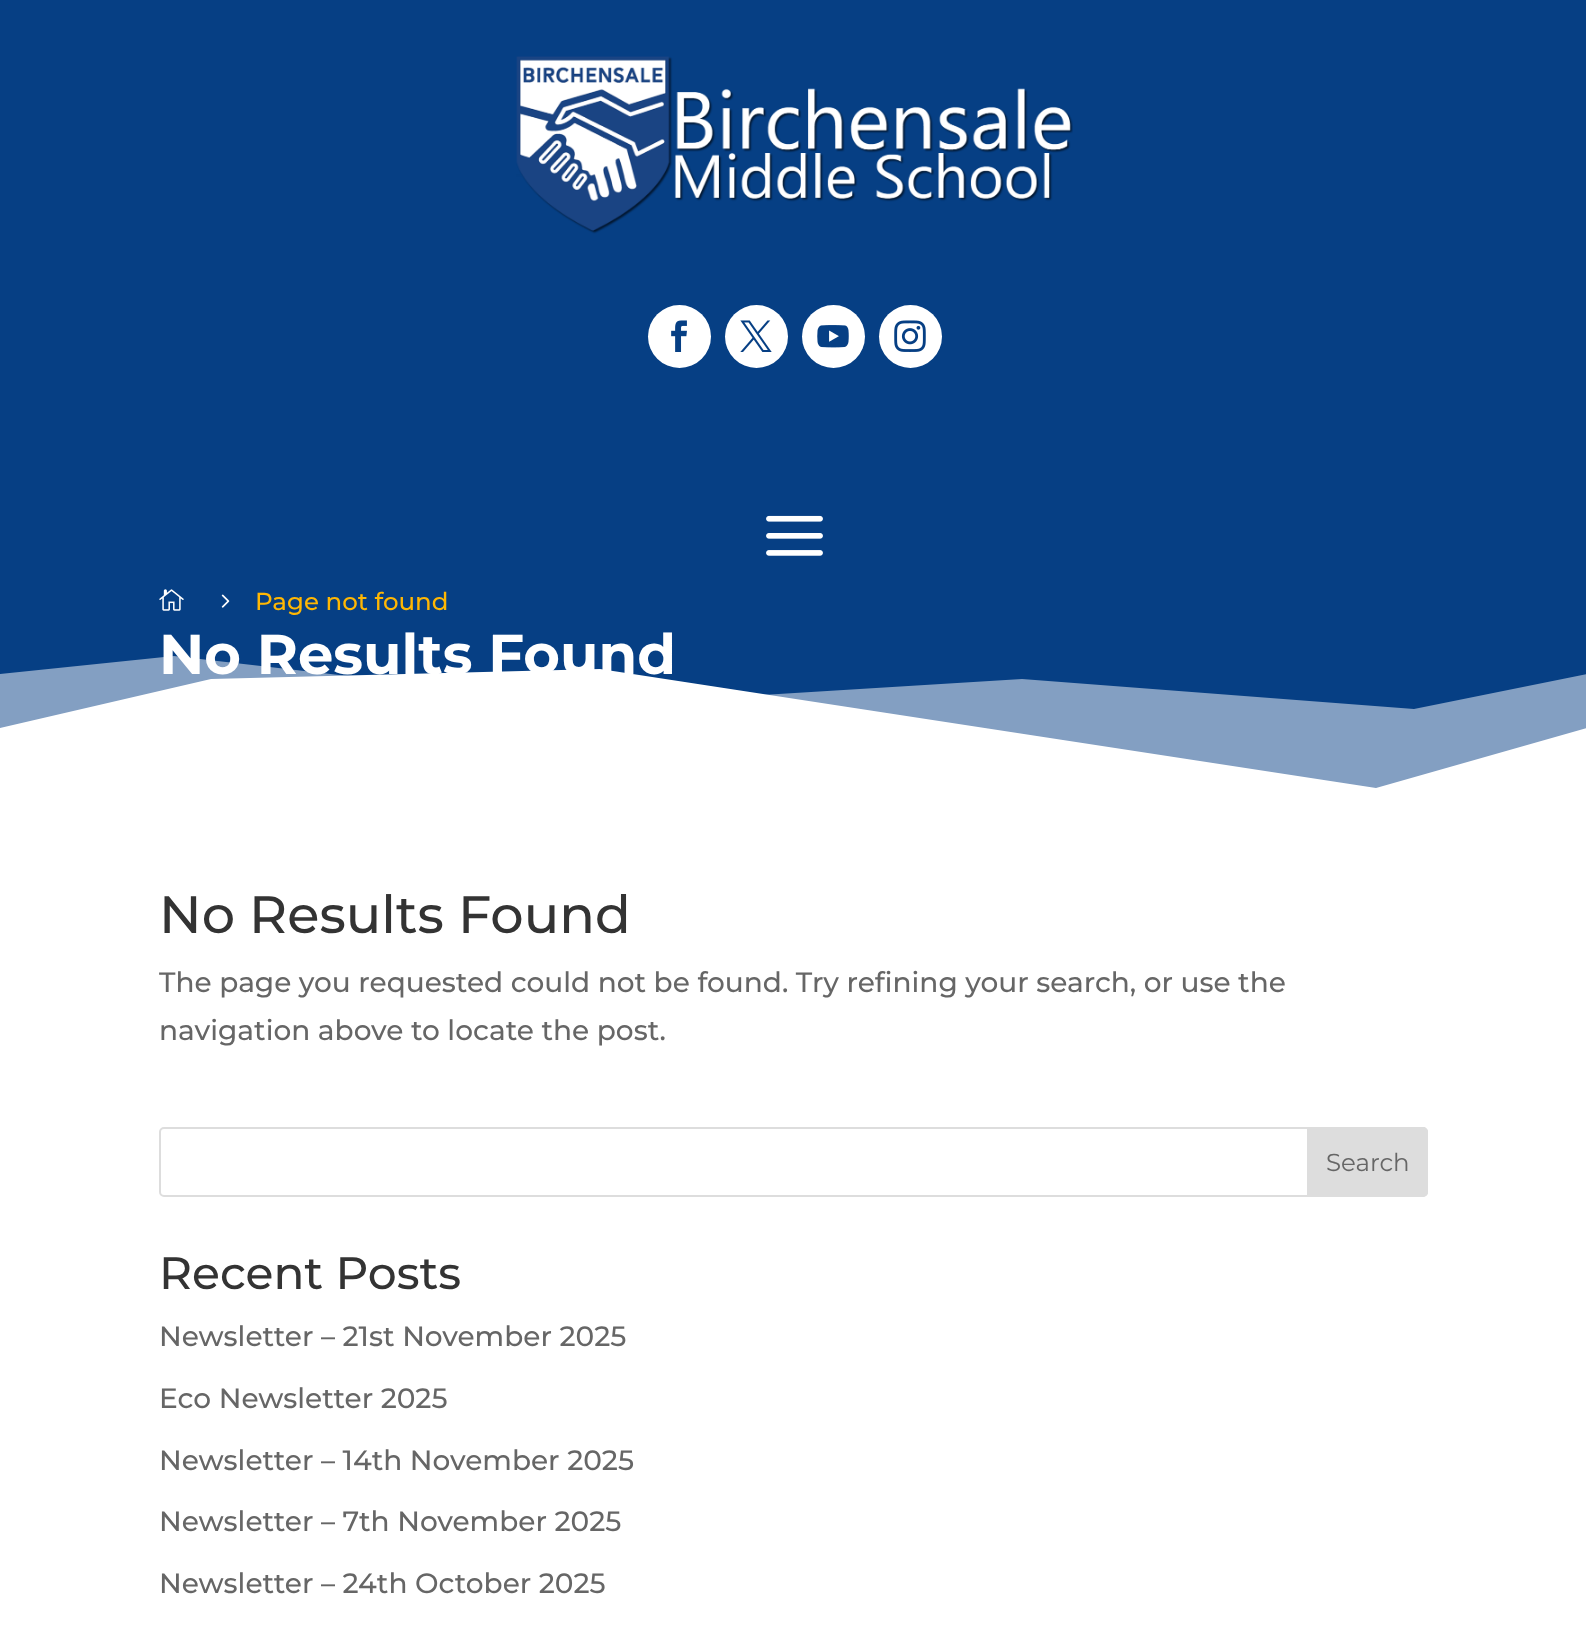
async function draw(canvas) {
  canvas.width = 1586;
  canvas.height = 1629;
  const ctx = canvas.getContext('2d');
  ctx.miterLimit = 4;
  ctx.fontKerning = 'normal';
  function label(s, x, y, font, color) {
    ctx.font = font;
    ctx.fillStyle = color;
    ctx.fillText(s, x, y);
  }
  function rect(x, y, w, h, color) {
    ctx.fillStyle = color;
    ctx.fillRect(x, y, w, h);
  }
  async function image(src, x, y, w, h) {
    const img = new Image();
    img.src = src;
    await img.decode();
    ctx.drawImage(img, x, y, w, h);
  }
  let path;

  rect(0, 0, 1586, 1629, '#fff');
  rect(0, 0, 1586, 709, '#063f84');
  await image('assets/img1.png', 516, 56, 557, 178);
  ctx.fillStyle = '#fff';
  ctx.beginPath();
  ctx.arc(679.5, 336.5, 31.5, 0, 2 * Math.PI);
  ctx.fill();
  await image('assets/img2.png', 671, 320, 16, 32);
  ctx.beginPath();
  ctx.arc(756.5, 336.5, 31.5, 0, 2 * Math.PI);
  ctx.fill();
  await image('assets/img3.png', 740, 320, 32, 32);
  ctx.beginPath();
  ctx.arc(833.5, 336.5, 31.5, 0, 2 * Math.PI);
  ctx.fill();
  await image('assets/img4.png', 817, 325, 32, 23);
  ctx.beginPath();
  ctx.arc(910.5, 336.5, 31.5, 0, 2 * Math.PI);
  ctx.fill();
  await image('assets/img5.png', 894, 320, 32, 32);
  await image('assets/img6.png', 766, 515, 57, 41);
  await image('assets/img7.png', 159, 589, 25, 22);
  await image('assets/img8.png', 221, 594, 9, 14);
  label('Page not found', 255, 610, '100 24.5px Montserrat', '#ffb703');
  ctx.fillStyle = '#839fc2';
  path = new Path2D('M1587 674L1414 709L1022 679L600 705L174 656L0 674V788H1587Z');
  ctx.fill(path);
  ctx.fillStyle = '#fff';
  path = new Path2D('M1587 788V728L1376 788L600 669L211 679L0 728V788Z');
  ctx.fill(path);
  label('No Results Found', 159, 674, '100 56px "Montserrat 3"', '#fff');
  label('No Results Found', 159, 933, '100 52.5px Montserrat', '#333');
  label('The page you requested could not be found. Try refining your search, or use the', 159, 992, '100 28px Montserrat', '#666');
  label('navigation above to locate the post.', 159, 1040, '100 28px Montserrat', '#666');
  ctx.beginPath();
  ctx.roundRect(160, 1128, 1267, 68, 4);
  ctx.strokeStyle = '#ddd';
  ctx.lineWidth = 2;
  ctx.stroke();
  ctx.fillStyle = '#ddd';
  ctx.beginPath();
  ctx.roundRect(1308, 1128, 119, 68, [0, 4, 4, 0]);
  ctx.fill();
  ctx.stroke();
  label('Search', 1326, 1171, '100 24.5px "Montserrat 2"', '#666');
  label('Recent Posts', 159, 1289, '100 45.5px Montserrat', '#333');
  label('Newsletter – 21st November 2025', 159, 1346, '100 28px Montserrat', '#666');
  label('Eco Newsletter 2025', 159, 1408, '100 28px Montserrat', '#666');
  label('Newsletter – 14th November 2025', 159, 1470, '100 28px Montserrat', '#666');
  label('Newsletter – 7th November 2025', 159, 1531, '100 28px Montserrat', '#666');
  label('Newsletter – 24th October 2025', 159, 1593, '100 28px Montserrat', '#666');
}

draw(document.querySelector('canvas'));
